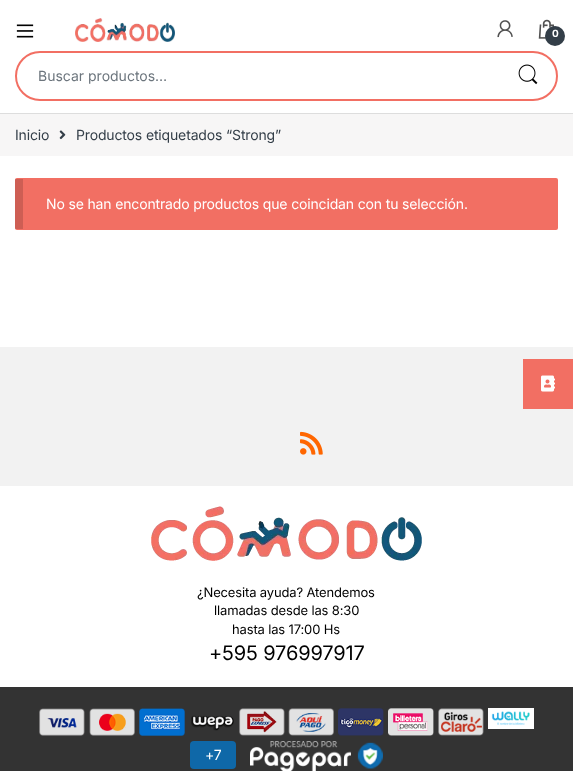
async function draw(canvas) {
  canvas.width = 573;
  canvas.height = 771;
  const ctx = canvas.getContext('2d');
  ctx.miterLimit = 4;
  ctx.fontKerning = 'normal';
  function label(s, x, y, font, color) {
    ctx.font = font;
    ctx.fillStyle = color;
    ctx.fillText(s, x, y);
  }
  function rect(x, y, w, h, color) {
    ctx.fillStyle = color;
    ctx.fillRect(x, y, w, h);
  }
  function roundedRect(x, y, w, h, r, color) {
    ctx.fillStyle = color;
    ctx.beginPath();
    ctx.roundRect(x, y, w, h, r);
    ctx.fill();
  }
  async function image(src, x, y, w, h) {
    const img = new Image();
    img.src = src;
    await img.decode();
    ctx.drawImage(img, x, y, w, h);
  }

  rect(0, 0, 573, 771, '#fff');
  rect(0, 113, 573, 1, '#ddd');
  await image('assets/img1.png', 16, 24, 18, 14);
  await image('assets/img2.png', 75, 18, 100, 24);
  await image('assets/img3.png', 497, 20, 16, 18);
  await image('assets/img4.png', 538, 19, 17, 20);
  ctx.fillStyle = '#333e48';
  ctx.beginPath();
  ctx.arc(555, 36, 10, 0, 2 * Math.PI);
  ctx.fill();
  ctx.letterSpacing = '-0.15px';
  label('0', 552, 37, 'bold 10px Inter', '#fff');
  ctx.beginPath();
  ctx.roundRect(16, 52, 541, 48, 24);
  ctx.strokeStyle = '#f26f63';
  ctx.lineWidth = 2;
  ctx.stroke();
  ctx.letterSpacing = '0px';
  label('Buscar productos…', 38, 81, '14px Inter', '#6c757d');
  await image('assets/img5.png', 518, 64, 20, 21);
  rect(0, 114, 573, 42, '#f7f6f6');
  ctx.letterSpacing = '-0.15px';
  label('Inicio', 15, 140, '14px Inter', '#333e48');
  await image('assets/img6.png', 59, 130, 7, 10);
  label('Productos etiquetados “Strong”', 76, 140, '14px Inter', '#333e48');
  roundedRect(15, 178, 543, 52, 2, '#f26f63');
  rect(15, 179, 8, 50, '#00000026');
  label('No se han encontrado productos que coincidan con tu selección.', 46, 209, '14px Inter', '#fff');
  rect(0, 347, 573, 139, '#f2f2f2');
  await image('assets/img7.png', 300, 431, 23, 24);
  await image('assets/img8.png', 151, 506, 271, 55);
  label('¿Necesita ayuda? Atendemos', 197, 597, '13px Inter', '#000');
  label('llamadas desde las 8:30', 214, 615, '13px Inter', '#000');
  label('hasta las 17:00 Hs', 232, 634, '13px Inter', '#000');
  label('+595 976997917', 209, 660, '20px Inter', '#000');
  rect(523, 359, 50, 50, '#f26f63');
  await image('assets/img9.png', 541, 375, 14, 17);
  rect(0, 687, 573, 84, '#333');
  await image('assets/img10.png', 39, 708, 46, 28);
  await image('assets/img11.png', 89, 708, 46, 28);
  await image('assets/img12.png', 139, 708, 46, 28);
  await image('assets/img13.png', 191, 715, 43, 16);
  await image('assets/img14.png', 239, 708, 46, 28);
  await image('assets/img15.png', 288, 708, 46, 28);
  await image('assets/img16.png', 338, 708, 46, 28);
  await image('assets/img17.png', 388, 708, 46, 28);
  await image('assets/img18.png', 438, 708, 46, 28);
  await image('assets/img19.png', 488, 708, 46, 21);
  roundedRect(190, 741, 46, 28, 4, '#0f68a8');
  label('+7', 205, 760, '14px Inter', '#fff');
  await image('assets/img20.png', 250, 741, 133, 30);
}

draw(document.querySelector('canvas'));
